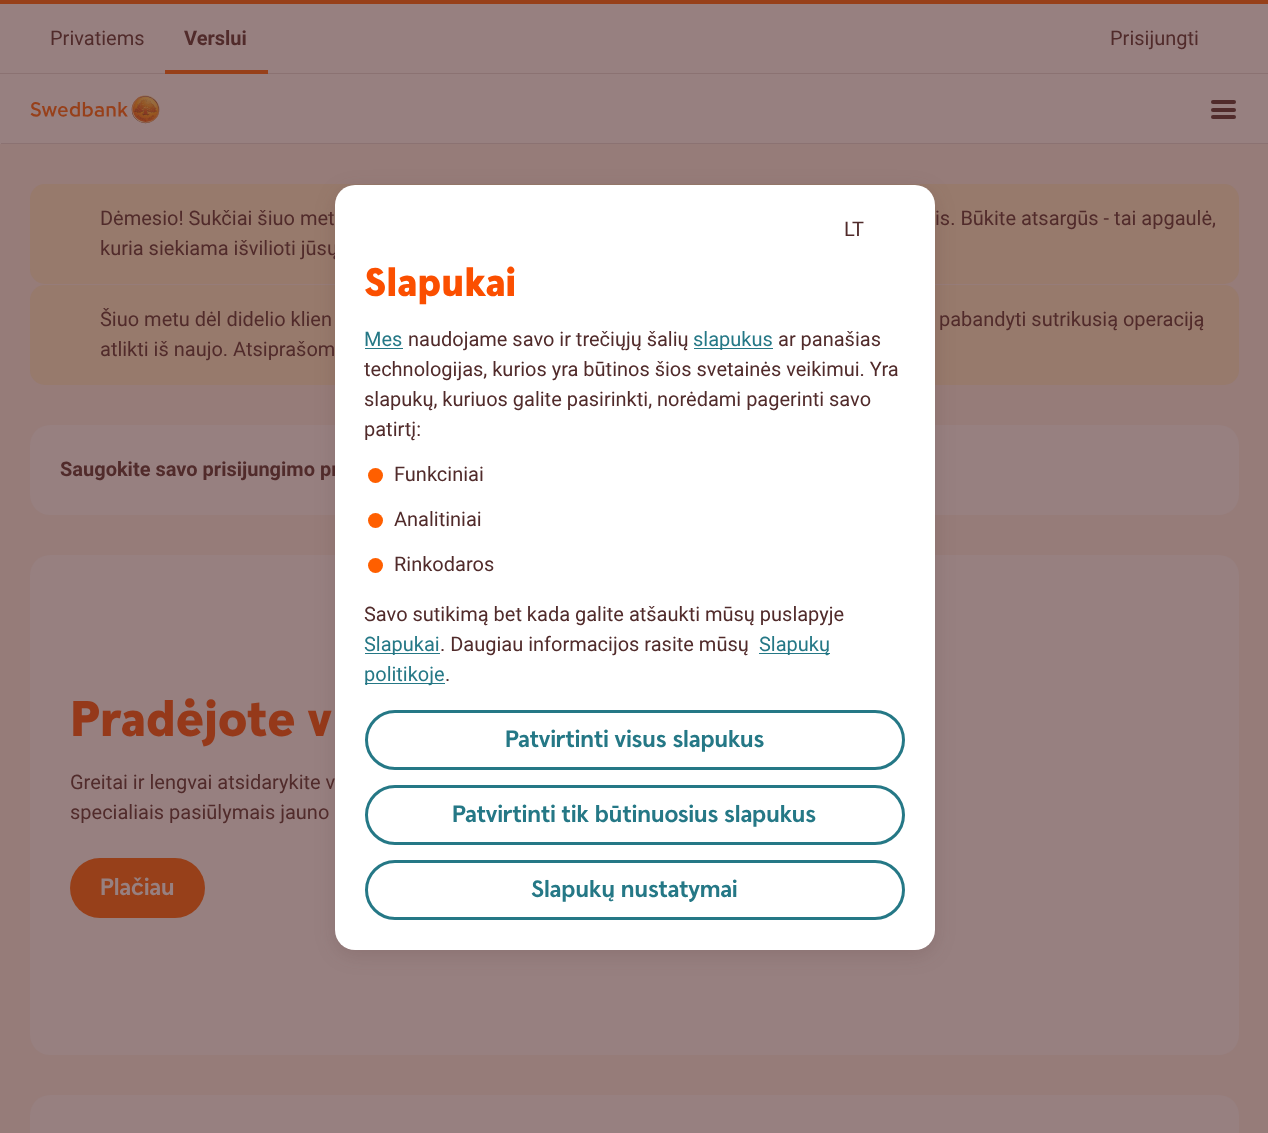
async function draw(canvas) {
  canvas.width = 1268;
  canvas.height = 1133;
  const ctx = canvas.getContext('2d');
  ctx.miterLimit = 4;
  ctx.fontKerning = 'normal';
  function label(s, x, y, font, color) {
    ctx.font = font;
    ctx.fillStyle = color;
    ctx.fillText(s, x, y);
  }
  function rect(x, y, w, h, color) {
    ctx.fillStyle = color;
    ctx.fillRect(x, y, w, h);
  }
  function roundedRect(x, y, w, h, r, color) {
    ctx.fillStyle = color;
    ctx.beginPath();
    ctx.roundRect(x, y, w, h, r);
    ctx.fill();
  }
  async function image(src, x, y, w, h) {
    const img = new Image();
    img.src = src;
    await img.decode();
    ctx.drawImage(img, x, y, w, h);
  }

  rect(0, 0, 1268, 1133, '#967c79');
  rect(0, 0, 1268, 4, '#97401a');
  rect(0, 4, 1268, 140, '#978080');
  label('Privatiems', 50, 45, '20px Roboto', '#512b2b');
  label('Verslui', 184, 45, 'bold 20px Roboto', '#512b2b');
  rect(0, 73, 1268, 1, '#8b7272');
  rect(165, 70, 103, 4, '#97401a');
  label('Prisijungti', 1110, 45, '20px Roboto', '#512b2b');
  await image('assets/img1.png', 30, 95, 130, 29);
  roundedRect(1211, 100, 25, 4, 2, '#512b2b');
  roundedRect(1211, 108, 25, 4, 2, '#512b2b');
  roundedRect(1211, 115, 25, 4, 2, '#512b2b');
  rect(1, 143, 1267, 1, '#8b7272');
  roundedRect(30, 184, 1209, 100, 15, '#977a6c');
  label('Dėmesio! Sukčiai šiuo met', 100, 225, '20px Roboto', '#512b2b');
  label('is. Būkite atsargūs - tai apgaulė,', 935, 225, '20px Roboto', '#512b2b');
  label('kuria siekiama išvilioti jūsų', 100, 255, '20px Roboto', '#512b2b');
  roundedRect(30, 285, 1209, 100, 15, '#977a6c');
  label('Šiuo metu dėl didelio klien', 100, 326, '20px Roboto', '#512b2b');
  label('pabandyti sutrikusią operaciją', 939, 326, '20px Roboto', '#512b2b');
  label('atlikti iš naujo. Atsiprašom', 100, 356, '20px Roboto', '#512b2b');
  roundedRect(30, 425, 1209, 90, 20, '#978080');
  label('Saugokite savo prisijungimo pr', 60, 476, 'bold 20px Roboto', '#512b2b');
  ctx.fillStyle = '#978080';
  ctx.beginPath();
  ctx.roundRect(30, 555, 605, 500, [20, 0, 0, 20]);
  ctx.fill();
  label('Pradėjote v', 70, 736, '900 50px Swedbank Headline', '#95391a');
  label('Greitai ir lengvai atsidarykite v', 70, 789, '20px Roboto', '#512b2b');
  label('specialiais pasiūlymais jauno', 70, 819, '20px Roboto', '#512b2b');
  roundedRect(70, 858, 135, 60, 30, '#97401a');
  label('Plačiau', 100, 895, 'bold 23.75px Swedbank Headline', '#978080');
  ctx.beginPath();
  ctx.roundRect(635, 555, 604, 500, [0, 20, 20, 0]);
  ctx.fill();
  roundedRect(30, 1095, 1209, 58, 20, '#978080');
  ctx.fillStyle = '#512b2b29';
  ctx.filter = 'blur(0.5px)';
  ctx.beginPath();
  ctx.roundRect(335, 185, 600, 765, 20);
  ctx.fill();
  ctx.filter = 'none';
  ctx.filter = 'blur(10px)';
  ctx.beginPath();
  ctx.roundRect(335, 190, 600, 765, 20);
  ctx.fill();
  ctx.filter = 'none';
  roundedRect(335, 185, 600, 765, 20, '#fff');
  label('LT', 844, 236, '20px Roboto', '#512b2b');
  label('Slapukai', 364, 296, '900 40px Swedbank Headline', '#fb4f00');
  label('Mes', 364, 346, '20px Roboto', '#257886');
  rect(365, 348, 38, 1, '#257886');
  label('naudojame savo ir trečiųjų šalių', 408, 346, '20px Roboto', '#512b2b');
  rect(694, 348, 79, 1, '#257886');
  label('slapukus', 693, 346, '20px Roboto', '#257886');
  label('ar panašias', 778, 346, '20px Roboto', '#512b2b');
  label('technologijas, kurios yra būtinos šios svetainės veikimui. Yra', 364, 376, '20px Roboto', '#512b2b');
  label('slapukų, kuriuos galite pasirinkti, norėdami pagerinti savo', 364, 406, '20px Roboto', '#512b2b');
  label('patirtį:', 364, 436, '20px Roboto', '#512b2b');
  ctx.fillStyle = '#ff5f00';
  ctx.beginPath();
  ctx.arc(375.5, 475.5, 7.5, 0, 2 * Math.PI);
  ctx.fill();
  label('Funkciniai', 394, 481, '20px Roboto', '#512b2b');
  ctx.fillStyle = '#ff5f00';
  ctx.beginPath();
  ctx.arc(375.5, 520.5, 7.5, 0, 2 * Math.PI);
  ctx.fill();
  label('Analitiniai', 394, 526, '20px Roboto', '#512b2b');
  ctx.fillStyle = '#ff5f00';
  ctx.beginPath();
  ctx.arc(375.5, 565.5, 7.5, 0, 2 * Math.PI);
  ctx.fill();
  label('Rinkodaros', 394, 571, '20px Roboto', '#512b2b');
  label('Savo sutikimą bet kada galite atšaukti mūsų puslapyje', 364, 621, '20px Roboto', '#512b2b');
  rect(365, 653, 75, 1, '#257886');
  label('Slapukai', 364, 651, '20px Roboto', '#257886');
  label('. Daugiau informacijos rasite mūsų', 440, 651, '20px Roboto', '#512b2b');
  rect(759, 653, 71, 1, '#257886');
  label('Slapukų', 759, 651, '20px Roboto', '#257886');
  rect(365, 683, 80, 1, '#257886');
  label('politikoje', 364, 681, '20px Roboto', '#257886');
  label('.', 445, 681, '20px Roboto', '#512b2b');
  ctx.beginPath();
  ctx.roundRect(366.5, 711.5, 537, 57, 28.5);
  ctx.strokeStyle = '#257886';
  ctx.lineWidth = 3;
  ctx.stroke();
  label('Patvirtinti visus slapukus', 505, 747, 'bold 23.75px Swedbank Headline', '#257886');
  ctx.beginPath();
  ctx.roundRect(366.5, 786.5, 537, 57, 28.5);
  ctx.stroke();
  label('Patvirtinti tik būtinuosius slapukus', 452, 822, 'bold 23.75px Swedbank Headline', '#257886');
  ctx.beginPath();
  ctx.roundRect(366.5, 861.5, 537, 57, 28.5);
  ctx.stroke();
  label('Slapukų nustatymai', 531, 897, 'bold 23.75px Swedbank Headline', '#257886');
}

draw(document.querySelector('canvas'));
